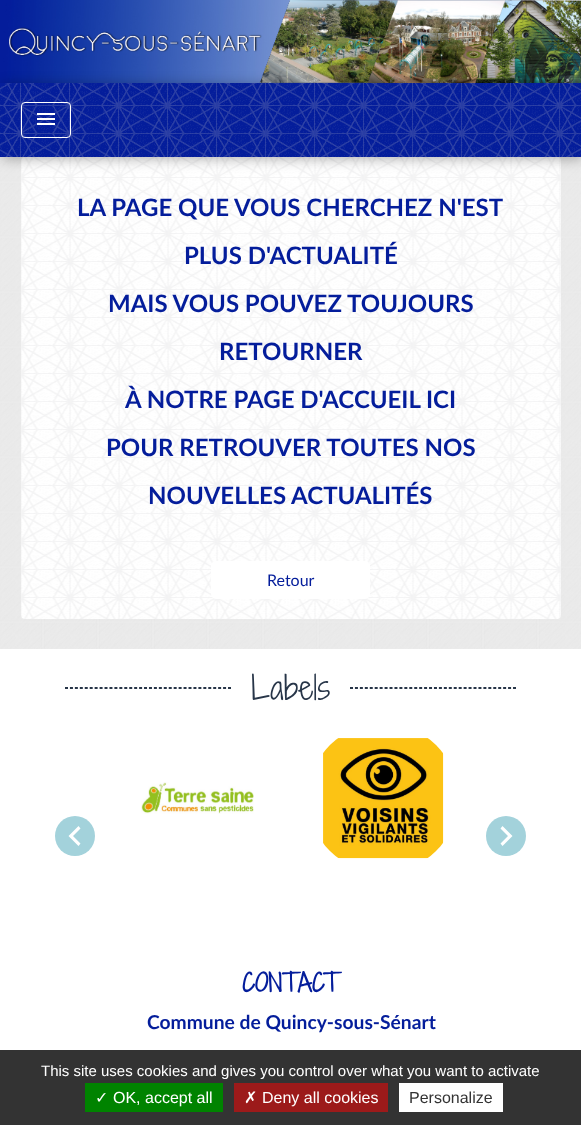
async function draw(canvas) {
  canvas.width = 581;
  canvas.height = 1125;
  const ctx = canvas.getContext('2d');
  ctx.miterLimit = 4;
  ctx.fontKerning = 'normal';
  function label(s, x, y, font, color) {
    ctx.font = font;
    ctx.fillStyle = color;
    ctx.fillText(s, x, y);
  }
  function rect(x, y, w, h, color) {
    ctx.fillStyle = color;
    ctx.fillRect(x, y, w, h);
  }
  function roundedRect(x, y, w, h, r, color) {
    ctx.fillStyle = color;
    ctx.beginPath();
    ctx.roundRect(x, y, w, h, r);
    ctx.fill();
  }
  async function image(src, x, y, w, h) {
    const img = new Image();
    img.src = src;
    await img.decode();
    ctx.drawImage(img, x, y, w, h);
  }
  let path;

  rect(0, 0, 581, 1125, '#fff');
  await image('assets/img1.png', 0, 157, 581, 492);
  await image('assets/img2.png', 0, 0, 581, 83);
  roundedRect(21, 157, 540, 462, 4, '#fff');
  await image('assets/img5.png', 21, 157, 540, 462);
  ctx.fillStyle = '#0000004d';
  ctx.filter = 'blur(6.5px)';
  ctx.beginPath();
  ctx.rect(2, 85, 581, 74);
  ctx.fill();
  ctx.filter = 'none';
  rect(0, 83, 581, 74, '#041d9b');
  await image('assets/img3.png', 0, 83, 581, 74);
  ctx.beginPath();
  ctx.roundRect(21.5, 102.5, 49, 35, 3.5);
  ctx.strokeStyle = '#fff';
  ctx.stroke();
  await image('assets/img4.png', 37, 113, 18, 12);
  label('LA PAGE QUE VOUS CHERCHEZ N\'EST', 77, 216, 'bold 24px Lato', '#041d9b');
  label('PLUS D\'ACTUALITÉ', 184, 264, 'bold 24px Lato', '#041d9b');
  label('MAIS VOUS POUVEZ TOUJOURS', 108, 312, 'bold 24px Lato', '#041d9b');
  label('RETOURNER', 219, 360, 'bold 24px Lato', '#041d9b');
  label('À NOTRE PAGE D\'ACCUEIL', 125, 408, 'bold 24px Lato', '#041d9b');
  label('ICI', 426, 408, 'bold 24px Lato', '#041d9b');
  label('POUR RETROUVER TOUTES NOS', 106, 456, 'bold 24px Lato', '#041d9b');
  label('NOUVELLES ACTUALITÉS', 148, 504, 'bold 24px Lato', '#041d9b');
  roundedRect(211, 561, 159, 38, 5, '#fff');
  label('Retour', 267, 586, '16px Lato', '#041d9b');
  path = new Path2D('M65 687.5H231');
  ctx.strokeStyle = '#273548';
  ctx.setLineDash([3, 1.94]);
  ctx.stroke(path);
  rect(230, 687, 1, 2, '#273548');
  path = new Path2D('M65 688.5H231');
  ctx.stroke(path);
  label('Labels', 251, 700, '300 32px Shadows Into Light Two', '#273548');
  path = new Path2D('M350 687.5H516');
  ctx.stroke(path);
  rect(515, 687, 1, 2, '#273548');
  path = new Path2D('M350 688.5H516');
  ctx.stroke(path);
  await image('assets/img6.png', 141, 782, 113, 32);
  await image('assets/img7.png', 323, 738, 121, 121);
  ctx.fillStyle = '#a3d2db';
  ctx.beginPath();
  ctx.arc(75, 836, 20, 0, 2 * Math.PI);
  ctx.fill();
  ctx.fillStyle = '#fff';
  path = new Path2D('M80.5 828.5L73 836L80.5 843.5L78.5 846L68.5 836L78.5 826Z');
  ctx.fill(path);
  ctx.fillStyle = '#a3d2db';
  ctx.beginPath();
  ctx.arc(506, 836, 20, 0, 2 * Math.PI);
  ctx.fill();
  ctx.fillStyle = '#fff';
  path = new Path2D('M502.5 826L512.5 836L502.5 846L500.5 843.5L508 836L500.5 828.5Z');
  ctx.fill(path);
  label('CONTACT', 242, 992, 'bold 24px Shadows Into Light Two', '#041d9b');
  label('Commune de Quincy-sous-Sénart', 147, 1029, 'bold 19.25px Lato', '#041d9b');
  rect(0, 1050, 581, 75, '#333');
  label('This site uses cookies and gives you control over what you want to activate', 41, 1076, '15px Liberation Sans', '#fff');
  rect(85, 1083, 138, 29, '#008300');
  label('✓', 95, 1103, '16px DejaVu Sans', '#fff');
  label('OK, accept all', 113, 1103, '16px Liberation Sans', '#fff');
  rect(234, 1083, 154, 29, '#9c1a1a');
  label('✗', 244, 1103, '16px DejaVu Sans', '#fff');
  label('Deny all cookies', 262, 1103, '16px Liberation Sans', '#fff');
  rect(399, 1083, 104, 29, '#fff');
  label('Personalize', 409, 1103, '16px Liberation Sans', '#333');
}

draw(document.querySelector('canvas'));
